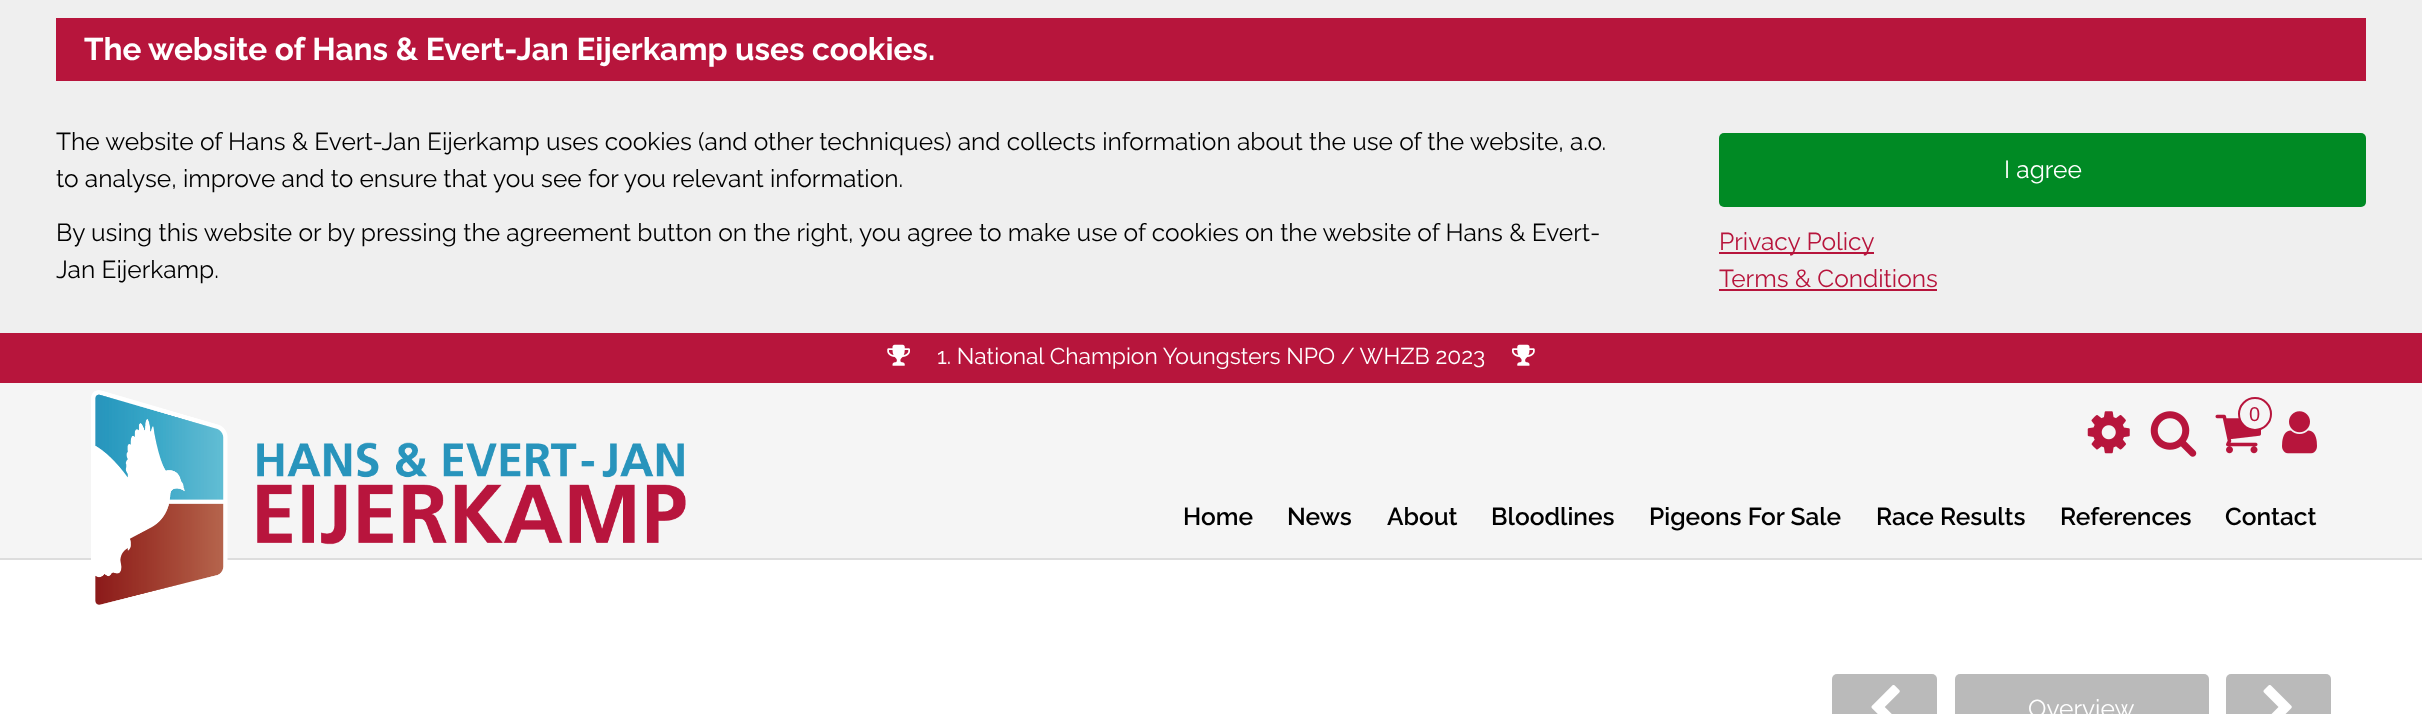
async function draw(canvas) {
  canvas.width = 2422;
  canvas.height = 714;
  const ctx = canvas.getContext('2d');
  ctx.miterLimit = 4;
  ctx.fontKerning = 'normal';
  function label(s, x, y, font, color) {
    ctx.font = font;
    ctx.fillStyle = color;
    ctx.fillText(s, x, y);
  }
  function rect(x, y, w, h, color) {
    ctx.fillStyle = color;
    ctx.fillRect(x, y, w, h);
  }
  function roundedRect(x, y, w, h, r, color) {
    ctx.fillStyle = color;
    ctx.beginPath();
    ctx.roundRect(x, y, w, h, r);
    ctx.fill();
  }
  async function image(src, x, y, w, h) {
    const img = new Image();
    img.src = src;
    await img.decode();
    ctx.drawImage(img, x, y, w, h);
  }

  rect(0, 0, 2422, 714, '#efefef');
  rect(56, 18, 2310, 63, '#b7153c');
  label('The website of Hans & Evert-Jan Eijerkamp uses cookies.', 84, 60, 'bold 31.5px Raleway', '#fff');
  label('The website of Hans & Evert-Jan Eijerkamp uses cookies (and other techniques) and collects information about the use of the website, a.o.', 56, 150, '100 24.5px Raleway', '#000');
  label('to analyse, improve and to ensure that you see for you relevant information.', 56, 187, '100 24.5px Raleway', '#000');
  label('By using this website or by pressing the agreement button on the right, you agree to make use of cookies on the website of Hans & Evert-', 56, 241, '100 24.5px Raleway', '#000');
  label('Jan Eijerkamp.', 56, 278, '100 24.5px Raleway', '#000');
  roundedRect(1719, 133, 647, 74, 5, '#008a24');
  label('I agree', 2004, 178, '100 24.5px Raleway', '#fff');
  rect(1719, 252, 155, 2, '#b7153c');
  label('Privacy Policy', 1719, 250, '100 24.5px Raleway', '#b7153c');
  label('Terms & Conditions', 1719, 287, '100 24.5px Raleway', '#b7153c');
  rect(1719, 289, 218, 2, '#b7153c');
  rect(0, 558, 2422, 2, '#ddd');
  rect(0, 333, 2422, 50, '#b7153c');
  await image('assets/img1.png', 887, 344, 23, 22);
  label('1. National Champion Youngsters NPO / WHZB 2023', 937, 364, '100 22.75px Raleway', '#fff');
  await image('assets/img2.png', 1512, 344, 23, 22);
  rect(0, 383, 2422, 175, '#f5f5f5');
  rect(0, 560, 2422, 154, '#fff');
  await image('assets/img3.png', 91, 390, 137, 215);
  await image('assets/img4.png', 257, 442, 429, 103);
  await image('assets/img5.png', 2087, 411, 43, 43);
  await image('assets/img6.png', 2150, 411, 47, 46);
  await image('assets/img7.png', 2215, 414, 46, 40);
  ctx.fillStyle = '#f5f5f5';
  ctx.beginPath();
  ctx.arc(2255, 414, 16, 0, 2 * Math.PI);
  ctx.fill();
  ctx.strokeStyle = '#b7153c';
  ctx.lineWidth = 2;
  ctx.stroke();
  label('0', 2249, 421, '20px Liberation Sans', '#b7153c');
  await image('assets/img8.png', 2282, 411, 35, 43);
  label('Home', 1183, 525, '600 24.5px Raleway', '#000');
  label('News', 1287, 525, '600 24.5px Raleway', '#000');
  label('About', 1387, 525, '600 24.5px Raleway', '#000');
  label('Bloodlines', 1491, 525, '600 24.5px Raleway', '#000');
  label('Pigeons For Sale', 1649, 525, '600 24.5px Raleway', '#000');
  label('Race Results', 1876, 525, '600 24.5px Raleway', '#000');
  label('References', 2060, 525, '600 24.5px Raleway', '#000');
  label('Contact', 2225, 525, '600 24.5px Raleway', '#000');
  roundedRect(1832, 674, 105, 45, 5, '#bababa');
  await image('assets/img9.png', 1871, 685, 29, 29);
  roundedRect(1955, 674, 254, 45, 5, '#bababa');
  label('Overview', 2028, 717, '100 24.5px Raleway', '#fff');
  roundedRect(2226, 674, 105, 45, 5, '#bababa');
  await image('assets/img10.png', 2263, 685, 29, 29);
}

draw(document.querySelector('canvas'));
